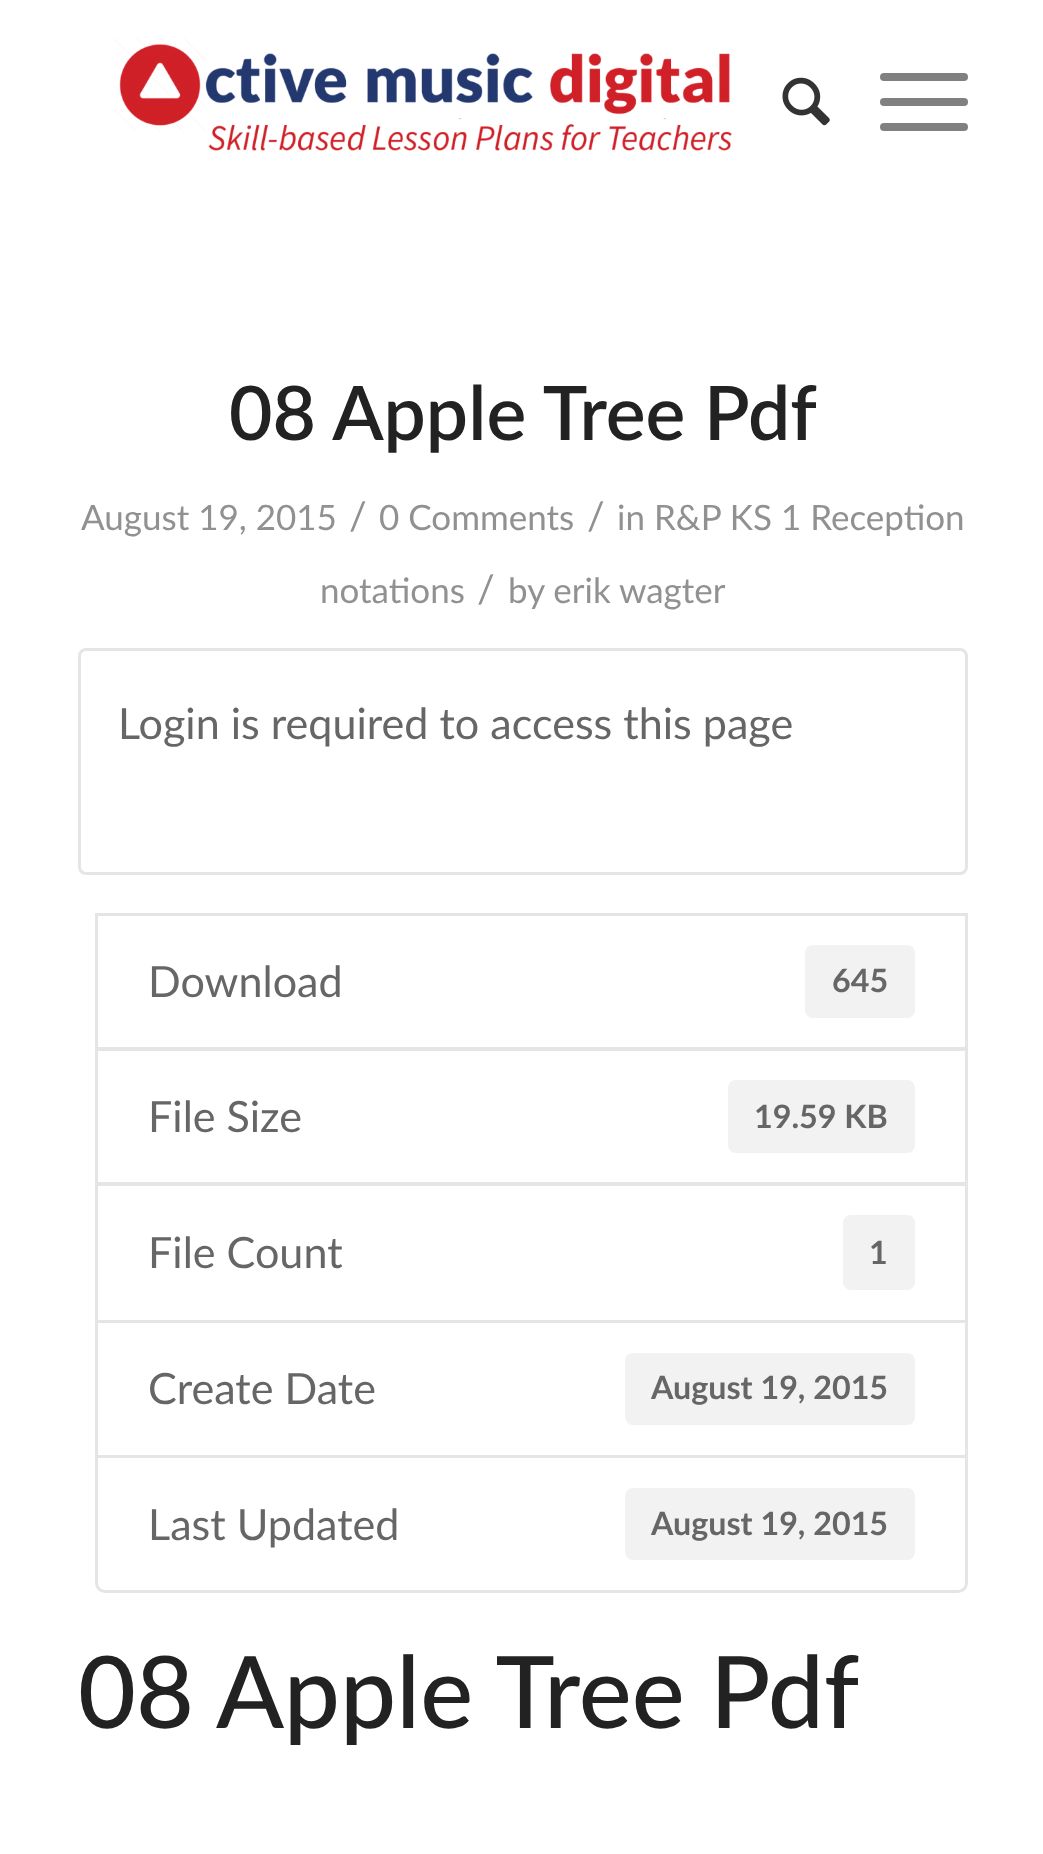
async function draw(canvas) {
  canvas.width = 1043;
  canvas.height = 1854;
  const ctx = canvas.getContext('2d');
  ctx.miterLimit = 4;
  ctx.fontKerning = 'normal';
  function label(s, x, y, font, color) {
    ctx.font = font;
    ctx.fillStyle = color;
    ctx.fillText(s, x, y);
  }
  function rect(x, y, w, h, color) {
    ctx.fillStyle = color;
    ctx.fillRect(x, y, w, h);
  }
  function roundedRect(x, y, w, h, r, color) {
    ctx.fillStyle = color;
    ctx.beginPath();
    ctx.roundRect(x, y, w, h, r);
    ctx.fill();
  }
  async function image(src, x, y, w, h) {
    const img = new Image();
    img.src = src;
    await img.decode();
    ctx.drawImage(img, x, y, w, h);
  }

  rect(0, 0, 1043, 1854, '#fff');
  await image('assets/img1.png', 113, 38, 619, 113);
  await image('assets/img2.png', 782, 77, 48, 49);
  roundedRect(880, 98, 88, 8, 4, '#808080');
  roundedRect(880, 73, 88, 8, 4, '#808080');
  roundedRect(880, 123, 88, 8, 4, '#808080');
  label('08 Apple Tree Pdf', 229, 440, '600 75px Lato', '#222');
  label('August 19, 2015', 81, 530, '35px Lato', '#919191');
  label('/', 349, 530, '39px Lato', '#919191');
  label('0 Comments', 379, 530, '35px Lato', '#919191');
  label('/', 587, 530, '39px Lato', '#919191');
  label('in R&P KS 1 Reception', 617, 530, '35px Lato', '#919191');
  label('notations', 320, 603, '35px Lato', '#919191');
  label('/', 477, 603, '39px Lato', '#919191');
  label('by erik wagter', 508, 603, '35px Lato', '#919191');
  ctx.beginPath();
  ctx.roundRect(79.5, 649.5, 887, 224, 6.5);
  ctx.strokeStyle = '#e5e5e5';
  ctx.lineWidth = 3;
  ctx.stroke();
  label('Login is required to access this page', 118, 739, '43.1px Lato', '#666');
  ctx.strokeRect(96.5, 914.5, 870, 134);
  label('Download', 148, 997, '43.1px Lato', '#666');
  roundedRect(805, 945, 110, 73, 8, '#f2f2f2');
  label('645', 832, 992, 'bold 32.25px Lato', '#666');
  ctx.strokeRect(96.5, 1049.5, 870, 134);
  label('File Size', 148, 1132, '43.1px Lato', '#666');
  roundedRect(728, 1080, 187, 73, 8, '#f2f2f2');
  label('19.59 KB', 754, 1128, 'bold 32.25px Lato', '#666');
  ctx.strokeRect(96.5, 1184.5, 870, 137);
  label('File Count', 148, 1268, '43.1px Lato', '#666');
  roundedRect(843, 1215, 72, 75, 8, '#f2f2f2');
  label('1', 869, 1264, 'bold 32.25px Lato', '#666');
  ctx.strokeRect(96.5, 1321.5, 870, 135);
  label('Create Date', 148, 1404, '43.1px Lato', '#666');
  roundedRect(625, 1353, 290, 72, 8, '#f2f2f2');
  label('August 19, 2015', 651, 1399, 'bold 32.25px Lato', '#666');
  ctx.fillStyle = '#fff';
  ctx.beginPath();
  ctx.roundRect(96.5, 1456.5, 870, 135, [0, 0, 8.5, 8.5]);
  ctx.fill();
  ctx.stroke();
  label('Last Updated', 148, 1540, '43.1px Lato', '#666');
  roundedRect(625, 1488, 290, 72, 8, '#f2f2f2');
  label('August 19, 2015', 651, 1535, 'bold 32.25px Lato', '#666');
  label('08 Apple Tree Pdf', 78, 1728, '500 100px Lato', '#222');
}

draw(document.querySelector('canvas'));
